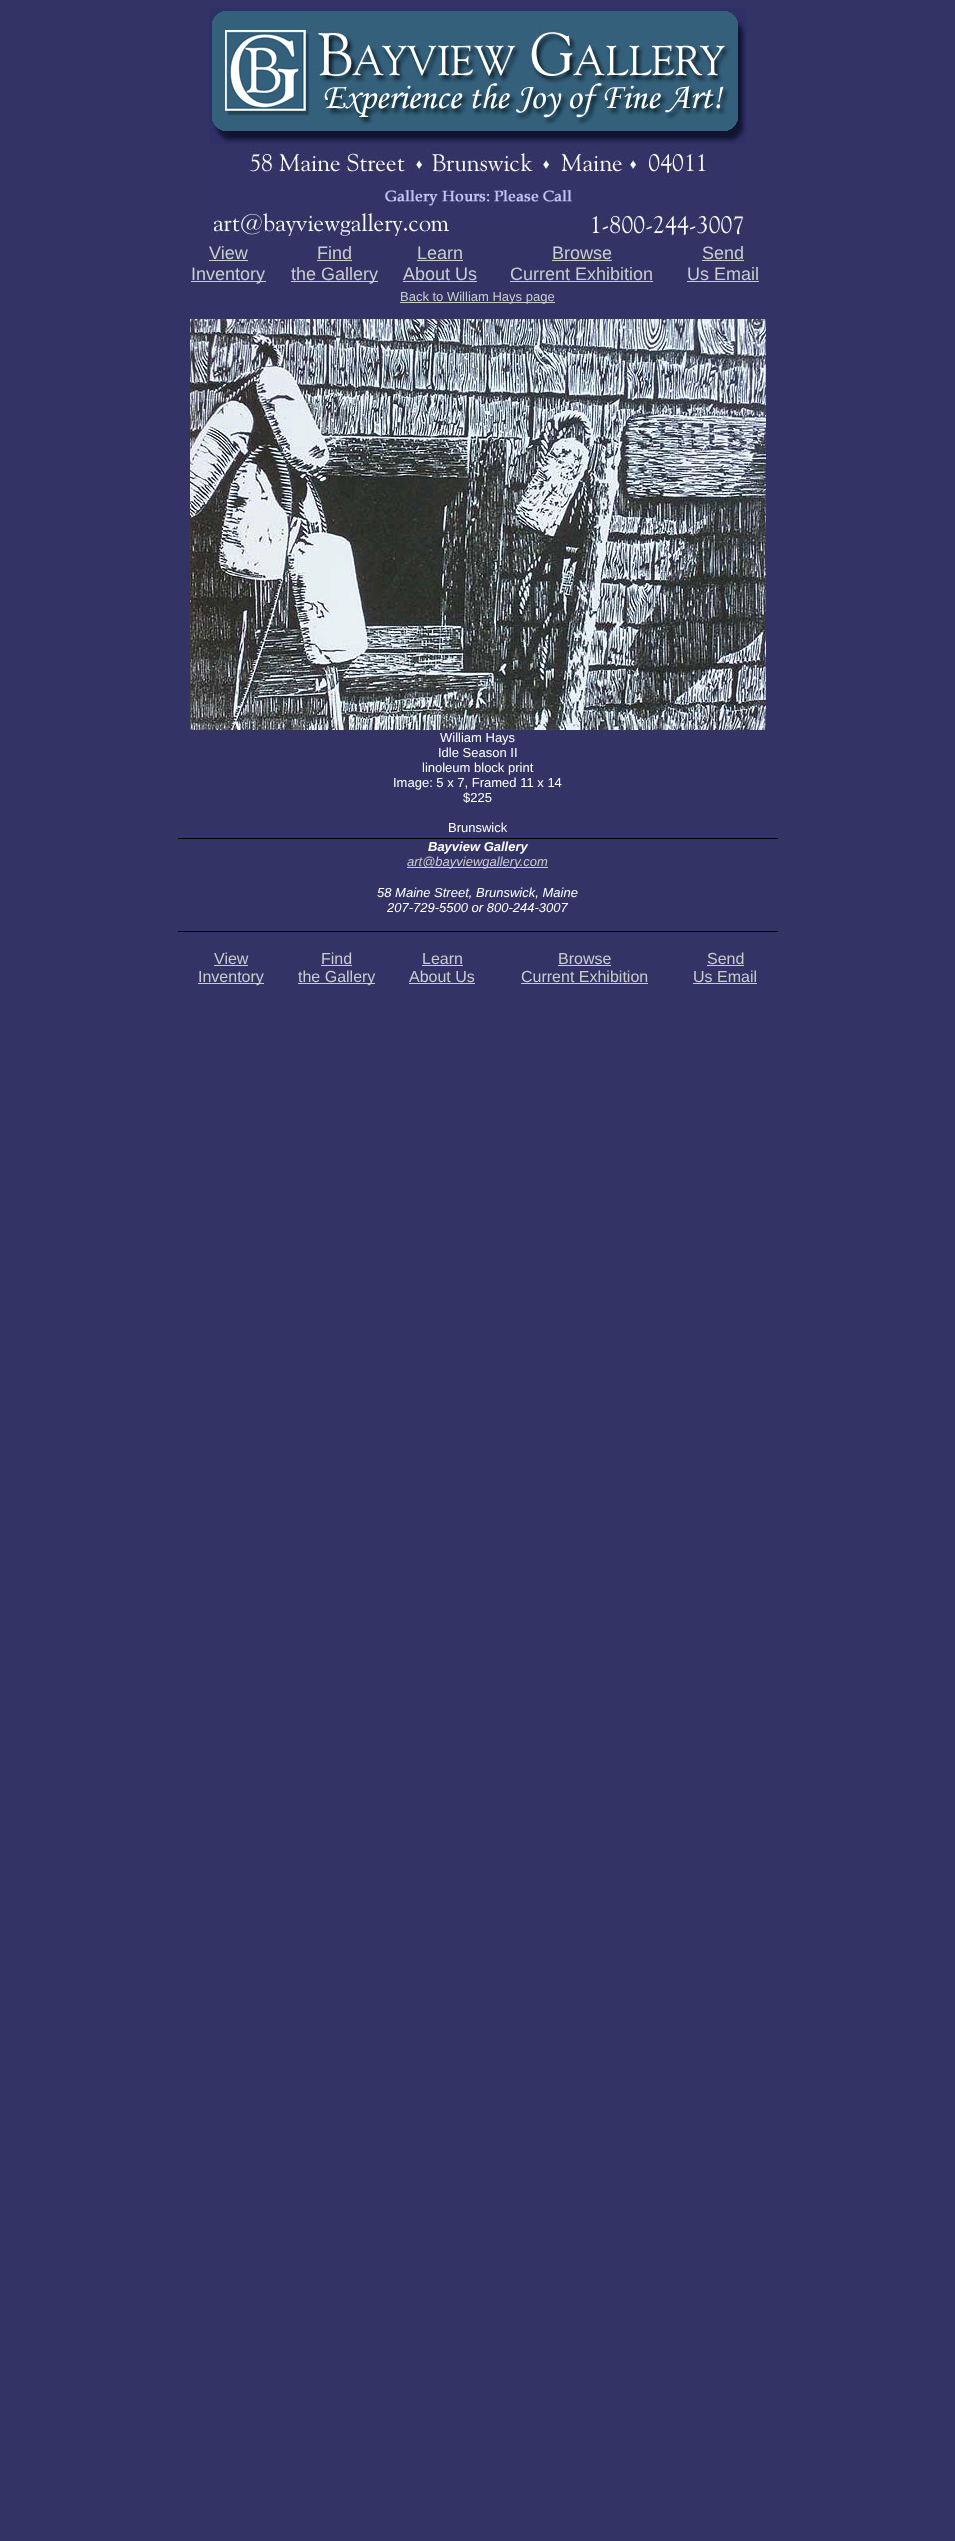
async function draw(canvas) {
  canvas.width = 955;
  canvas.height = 2541;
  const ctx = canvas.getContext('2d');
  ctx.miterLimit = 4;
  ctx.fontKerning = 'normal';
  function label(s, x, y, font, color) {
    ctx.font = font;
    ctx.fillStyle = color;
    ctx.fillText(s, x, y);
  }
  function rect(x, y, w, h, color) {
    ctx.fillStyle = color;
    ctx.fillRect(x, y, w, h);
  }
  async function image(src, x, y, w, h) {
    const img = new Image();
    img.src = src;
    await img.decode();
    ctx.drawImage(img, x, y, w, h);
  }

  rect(0, 0, 955, 2541, '#336');
  await image('assets/img1.png', 209, 8, 538, 136);
  await image('assets/img2.png', 209, 148, 536, 88);
  label('View', 209, 259, '18px Liberation Sans', '#ccc');
  rect(209, 260, 39, 1, '#ccc');
  rect(191, 281, 75, 1, '#ccc');
  label('Inventory', 191, 280, '18px Liberation Sans', '#ccc');
  label('Find', 317, 259, '18px Liberation Sans', '#ccc');
  rect(317, 260, 35, 1, '#ccc');
  rect(291, 281, 87, 1, '#ccc');
  label('the Gallery', 291, 280, '18px Liberation Sans', '#ccc');
  label('Learn', 417, 259, '18px Liberation Sans', '#ccc');
  rect(417, 260, 46, 1, '#ccc');
  label('About Us', 403, 280, '18px Liberation Sans', '#ccc');
  rect(403, 281, 74, 1, '#ccc');
  label('Browse', 552, 259, '18px Liberation Sans', '#ccc');
  rect(552, 260, 60, 1, '#ccc');
  label('Current Exhibition', 510, 280, '18px Liberation Sans', '#ccc');
  rect(510, 281, 143, 1, '#ccc');
  label('Send', 702, 259, '18px Liberation Sans', '#ccc');
  rect(702, 260, 42, 1, '#ccc');
  label('Us Email', 687, 280, '18px Liberation Sans', '#ccc');
  rect(687, 281, 72, 1, '#ccc');
  rect(400, 302, 155, 1, '#ccc');
  label('Back to William Hays page', 400, 301, '13px Liberation Sans', '#ccc');
  await image('assets/img3.png', 190, 319, 576, 411);
  label('William Hays', 440, 742, '13px Liberation Sans', '#fff');
  label('Idle Season II', 438, 757, '13px Liberation Sans', '#fff');
  label('linoleum block print', 422, 772, '13px Liberation Sans', '#fff');
  label('Image: 5 x 7, Framed 11 x 14', 393, 787, '13px Liberation Sans', '#fff');
  label('$225', 463, 802, '13px Liberation Sans', '#fff');
  label('Brunswick', 448, 832, '13px Liberation Sans', '#fff');
  rect(178, 838, 600, 1, '#000');
  label('Bayview Gallery', 428, 851, 'italic bold 13px Liberation Sans', '#fff');
  rect(407, 867, 141, 1, '#ccc');
  label('art@bayviewgallery.com', 407, 866, 'italic 13px Liberation Sans', '#ccc');
  label('58 Maine Street, Brunswick, Maine', 377, 897, 'italic 13px Liberation Sans', '#fff');
  label('207-729-5500 or 800-244-3007', 387, 912, 'italic 13px Liberation Sans', '#fff');
  rect(178, 931, 600, 1, '#000');
  label('View', 214, 964, '16px Liberation Sans', '#ccc');
  rect(214, 965, 34, 1, '#ccc');
  rect(198, 983, 66, 1, '#ccc');
  label('Inventory', 198, 982, '16px Liberation Sans', '#ccc');
  label('Find', 321, 964, '16px Liberation Sans', '#ccc');
  rect(321, 965, 31, 1, '#ccc');
  rect(298, 983, 77, 1, '#ccc');
  label('the Gallery', 298, 982, '16px Liberation Sans', '#ccc');
  label('Learn', 422, 964, '16px Liberation Sans', '#ccc');
  rect(422, 965, 41, 1, '#ccc');
  label('About Us', 409, 982, '16px Liberation Sans', '#ccc');
  rect(409, 983, 66, 1, '#ccc');
  label('Browse', 558, 964, '16px Liberation Sans', '#ccc');
  rect(558, 965, 53, 1, '#ccc');
  label('Current Exhibition', 521, 982, '16px Liberation Sans', '#ccc');
  rect(521, 983, 127, 1, '#ccc');
  label('Send', 707, 964, '16px Liberation Sans', '#ccc');
  rect(707, 965, 37, 1, '#ccc');
  label('Us Email', 693, 982, '16px Liberation Sans', '#ccc');
  rect(693, 983, 64, 1, '#ccc');
}

draw(document.querySelector('canvas'));
